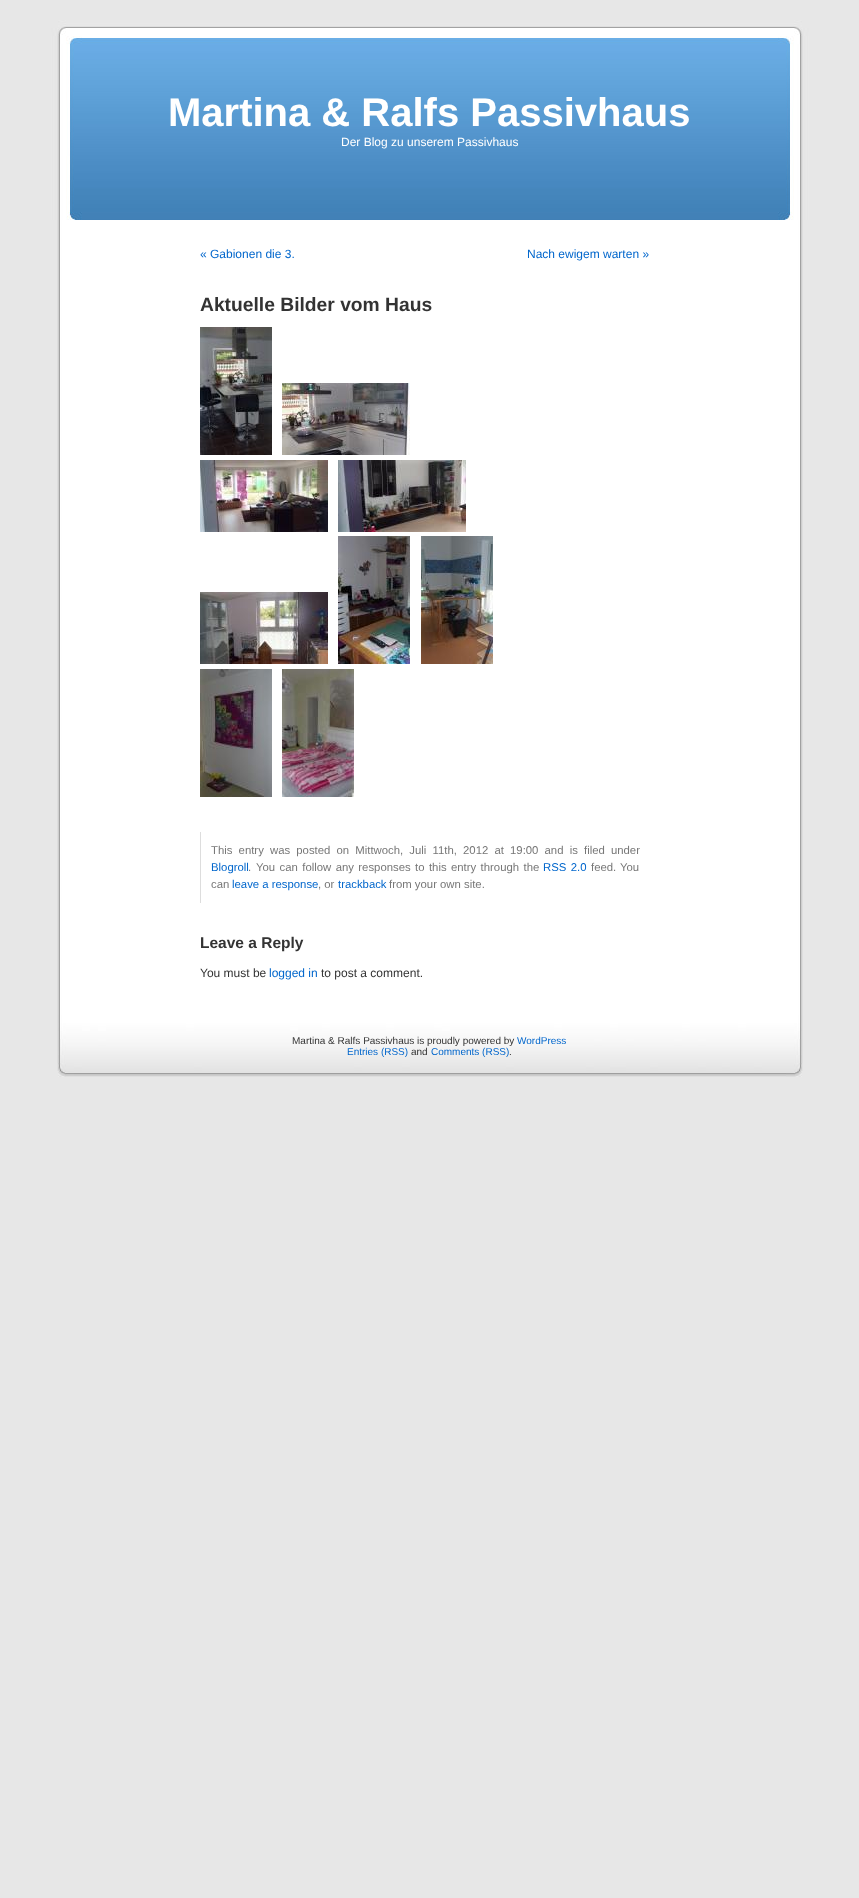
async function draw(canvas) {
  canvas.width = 859;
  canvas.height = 1898;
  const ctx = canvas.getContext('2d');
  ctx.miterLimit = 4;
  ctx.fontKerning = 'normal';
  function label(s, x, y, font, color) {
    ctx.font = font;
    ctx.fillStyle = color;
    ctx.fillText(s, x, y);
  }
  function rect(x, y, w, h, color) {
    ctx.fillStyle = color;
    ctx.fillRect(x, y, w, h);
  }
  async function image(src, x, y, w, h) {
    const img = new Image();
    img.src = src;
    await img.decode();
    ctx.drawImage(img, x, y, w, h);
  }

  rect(0, 0, 859, 1898, '#e7e7e7');
  await image('assets/img1.png', 57, 220, 746, 795);
  await image('assets/img2.png', 51, 20, 758, 200);
  label('Martina & Ralfs Passivhaus', 168, 126, 'bold 40px Liberation Sans', '#fff');
  label('Der Blog zu unserem Passivhaus', 341, 146, '12px Liberation Sans', '#fff');
  label('« Gabionen die 3.', 200, 258, '12px Liberation Sans', '#06c');
  label('Nach ewigem warten »', 527, 258, '12px Liberation Sans', '#06c');
  label('Aktuelle Bilder vom Haus', 200, 311, 'bold 19.25px Liberation Sans', '#333');
  await image('assets/img3.png', 200, 327, 72, 128);
  await image('assets/img4.png', 282, 383, 128, 72);
  await image('assets/img5.png', 200, 460, 128, 72);
  await image('assets/img6.png', 338, 460, 128, 72);
  await image('assets/img7.png', 200, 592, 128, 72);
  await image('assets/img8.png', 338, 536, 72, 128);
  await image('assets/img9.png', 421, 536, 72, 128);
  await image('assets/img10.png', 200, 669, 72, 128);
  await image('assets/img11.png', 282, 669, 72, 128);
  rect(200, 832, 1, 71, '#ddd');
  ctx.wordSpacing = '3px';
  label('This entry was posted on Mittwoch, Juli 11th, 2012 at 19:00 and is filed under', 211, 854, '11.35px Liberation Sans', '#777');
  ctx.wordSpacing = '0px';
  label('Blogroll', 211, 871, '11.35px Liberation Sans', '#06c');
  label('.', 248, 871, '11.35px Liberation Sans', '#777');
  ctx.wordSpacing = '1.25px';
  label('You can follow any responses to this entry through the', 256, 871, '11.35px Liberation Sans', '#777');
  label('RSS 2.0', 543, 871, '11.35px Liberation Sans', '#06c');
  ctx.wordSpacing = '0px';
  label('feed.', 591, 871, '11.35px Liberation Sans', '#777');
  label('You', 620, 871, '11.35px Liberation Sans', '#777');
  label('can', 211, 888, '11.35px Liberation Sans', '#777');
  label('leave a response', 232, 888, '11.35px Liberation Sans', '#06c');
  label(', or', 318, 888, '11.35px Liberation Sans', '#777');
  label('trackback', 338, 888, '11.35px Liberation Sans', '#06c');
  label('from your own site.', 389, 888, '11.35px Liberation Sans', '#777');
  label('Leave a Reply', 200, 948, 'bold 15.5px Liberation Sans', '#333');
  label('You must be', 200, 977, '12px Liberation Sans', '#333');
  label('logged in', 269, 977, '12px Liberation Sans', '#06c');
  label('to post a comment.', 321, 977, '12px Liberation Sans', '#333');
  await image('assets/img12.png', 57, 1015, 746, 62);
  label('Martina & Ralfs Passivhaus is proudly powered by', 292, 1044, '10px Liberation Sans', '#333');
  label('WordPress', 517, 1044, '10px Liberation Sans', '#06c');
  label('Entries (RSS)', 347, 1055, '10px Liberation Sans', '#06c');
  label('and', 411, 1055, '10px Liberation Sans', '#333');
  label('Comments (RSS)', 431, 1055, '10px Liberation Sans', '#06c');
  label('.', 509, 1055, '10px Liberation Sans', '#333');
}

draw(document.querySelector('canvas'));
